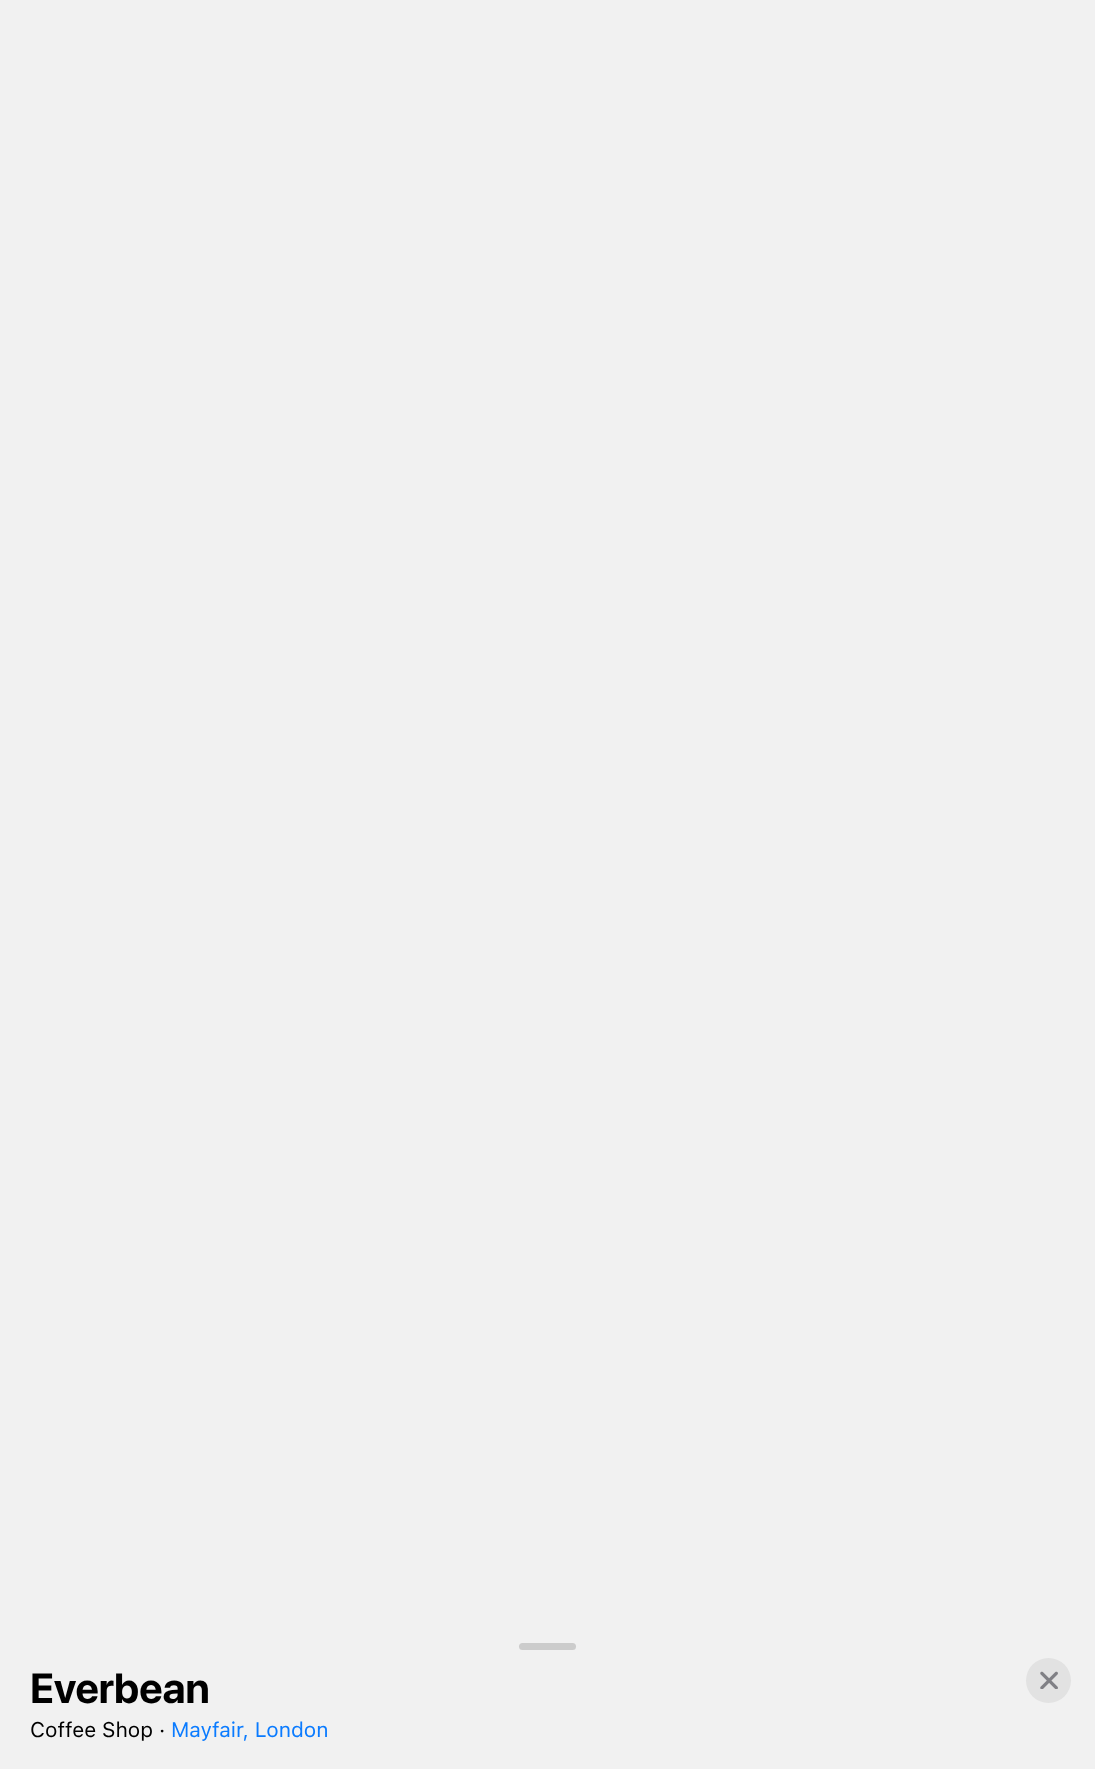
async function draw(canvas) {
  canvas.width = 1095;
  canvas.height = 1769;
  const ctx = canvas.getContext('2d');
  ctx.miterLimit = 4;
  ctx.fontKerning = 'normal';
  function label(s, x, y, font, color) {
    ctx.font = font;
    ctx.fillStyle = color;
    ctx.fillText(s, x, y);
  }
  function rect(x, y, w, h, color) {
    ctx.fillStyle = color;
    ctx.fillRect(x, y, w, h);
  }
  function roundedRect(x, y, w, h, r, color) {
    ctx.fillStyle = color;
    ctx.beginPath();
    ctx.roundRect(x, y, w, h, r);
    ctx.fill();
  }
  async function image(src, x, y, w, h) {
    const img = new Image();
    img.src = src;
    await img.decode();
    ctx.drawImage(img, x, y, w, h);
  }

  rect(0, 0, 1095, 1769, '#f1f1f1');
  roundedRect(519, 1643, 57, 7, 3.5, '#ccc');
  label('Everbean', 30, 1703, 'bold 42px SF', '#000');
  label('Coffee Shop ·', 30, 1737, '21px SF', '#000');
  label('Mayfair, London', 171, 1737, '21px SF', '#0a7bff');
  ctx.fillStyle = '#e2e2e2';
  ctx.beginPath();
  ctx.arc(1048.5, 1680.5, 22.5, 0, 2 * Math.PI);
  ctx.fill();
  await image('assets/img1.png', 1040, 1671, 18, 18);
}

draw(document.querySelector('canvas'));
